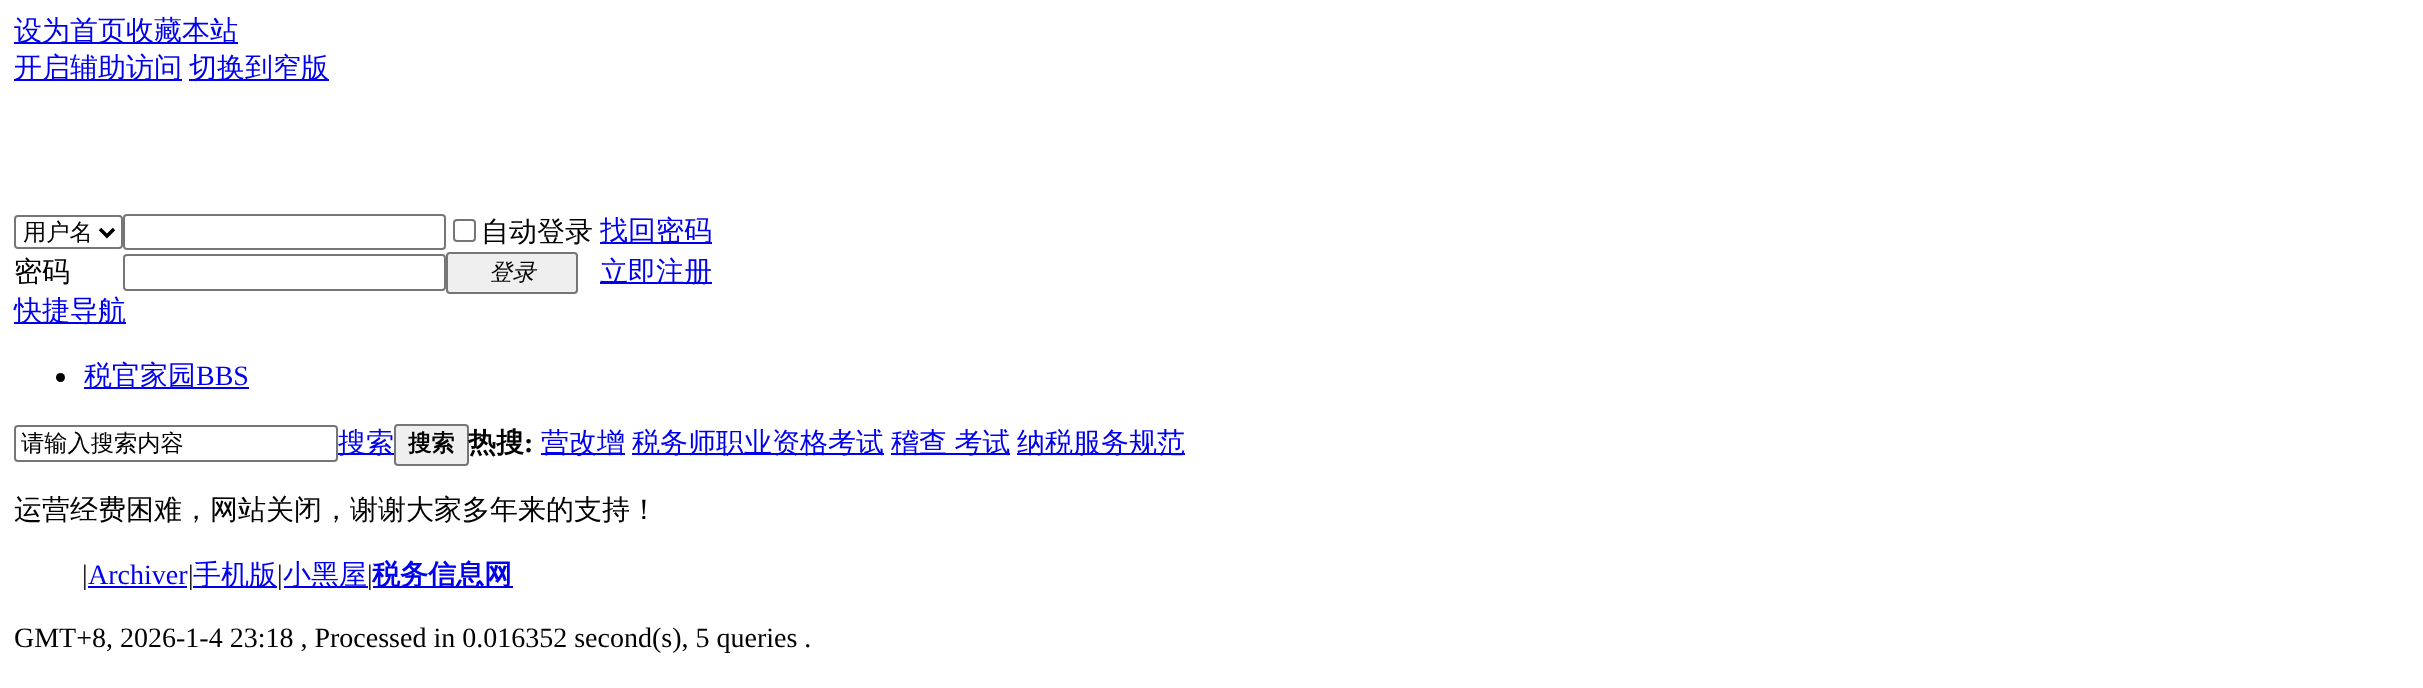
async function draw(canvas) {
  canvas.width = 2423;
  canvas.height = 688;
  const ctx = canvas.getContext('2d');
  ctx.miterLimit = 4;
  ctx.fontKerning = 'normal';
  function label(s, x, y, font, color) {
    ctx.font = font;
    ctx.fillStyle = color;
    ctx.fillText(s, x, y);
  }
  function rect(x, y, w, h, color) {
    ctx.fillStyle = color;
    ctx.fillRect(x, y, w, h);
  }
  let path;

  rect(0, 0, 2423, 688, '#fff');
  rect(14, 42, 224, 2, '#00e');
  label('设为首页收藏本站', 14, 40, '500 28px WenQuanYi Zen Hei', '#00e');
  rect(14, 79, 168, 2, '#00e');
  label('开启辅助访问', 14, 77, '500 28px WenQuanYi Zen Hei', '#00e');
  rect(189, 79, 140, 2, '#00e');
  label('切换到窄版', 189, 77, '500 28px WenQuanYi Zen Hei', '#00e');
  ctx.beginPath();
  ctx.roundRect(15, 216, 107, 32, 3);
  ctx.strokeStyle = '#767676';
  ctx.lineWidth = 2;
  ctx.stroke();
  path = new Path2D('M100 229L107 236L114 229');
  ctx.strokeStyle = '#000';
  ctx.lineWidth = 3.5;
  ctx.stroke(path);
  label('用户名', 23, 240, '500 23.25px WenQuanYi Zen Hei', '#000');
  ctx.beginPath();
  ctx.roundRect(124, 215, 321, 34, 3);
  ctx.strokeStyle = '#767676';
  ctx.lineWidth = 2;
  ctx.stroke();
  ctx.beginPath();
  ctx.roundRect(454, 220, 21, 21, 3);
  ctx.stroke();
  label('自动登录', 481, 241, '500 28px WenQuanYi Zen Hei', '#000');
  rect(600, 242, 112, 2, '#00e');
  label('找回密码', 600, 240, '500 28px WenQuanYi Zen Hei', '#00e');
  label('密码', 14, 281, '500 28px WenQuanYi Zen Hei', '#000');
  ctx.beginPath();
  ctx.roundRect(124, 255, 321, 35, 3);
  ctx.stroke();
  ctx.fillStyle = '#efefef';
  ctx.beginPath();
  ctx.roundRect(447, 253, 130, 40, 3);
  ctx.fill();
  ctx.stroke();
  label('登录', 489, 280, 'italic 500 23.25px WenQuanYi Zen Hei', '#000');
  rect(600, 282, 112, 2, '#00e');
  label('立即注册', 600, 281, '500 28px WenQuanYi Zen Hei', '#00e');
  rect(14, 322, 112, 2, '#00e');
  label('快捷导航', 14, 320, '500 28px WenQuanYi Zen Hei', '#00e');
  ctx.fillStyle = '#000';
  ctx.beginPath();
  ctx.arc(60.5, 377.5, 4.5, 0, 2 * Math.PI);
  ctx.fill();
  rect(84, 387, 165, 2, '#00e');
  label('税官家园', 84, 385, '500 28px WenQuanYi Zen Hei', '#00e');
  label('BBS', 196, 385, '28px Liberation Serif', '#00e');
  ctx.beginPath();
  ctx.roundRect(15, 426, 322, 35, 3);
  ctx.stroke();
  label('请输入搜索内容', 21, 451, '500 23.25px WenQuanYi Zen Hei', '#000');
  rect(338, 453, 56, 2, '#00e');
  label('搜索', 338, 452, '500 28px WenQuanYi Zen Hei', '#00e');
  ctx.fillStyle = '#efefef';
  ctx.beginPath();
  ctx.roundRect(395, 425, 73, 40, 3);
  ctx.fill();
  ctx.stroke();
  label('搜索', 408, 451, 'bold 23.25px WenQuanYi Zen Hei', '#000');
  label('热搜', 468, 452, 'bold 28px WenQuanYi Zen Hei', '#000');
  label(':', 524, 452, 'bold 28px Liberation Serif', '#000');
  rect(541, 453, 84, 2, '#00e');
  label('营改增', 541, 452, '500 28px WenQuanYi Zen Hei', '#00e');
  rect(632, 453, 252, 2, '#00e');
  label('税务师职业资格考试', 632, 452, '500 28px WenQuanYi Zen Hei', '#00e');
  rect(891, 453, 119, 2, '#00e');
  ctx.wordSpacing = '-1px';
  label('稽查 考试', 891, 452, '500 28px WenQuanYi Zen Hei', '#00e');
  rect(1017, 453, 168, 2, '#00e');
  ctx.wordSpacing = '0px';
  label('纳税服务规范', 1017, 452, '500 28px WenQuanYi Zen Hei', '#00e');
  label('运营经费困难，网站关闭，谢谢大家多年来的支持！', 14, 519, '500 28px WenQuanYi Zen Hei', '#000');
  label('|', 82, 584, '28px Liberation Serif', '#000');
  label('Archiver', 88, 584, '28px Liberation Serif', '#00e');
  rect(88, 586, 99, 2, '#00e');
  label('|', 188, 584, '28px Liberation Serif', '#000');
  rect(193, 586, 84, 2, '#00e');
  label('手机版', 193, 584, '500 28px WenQuanYi Zen Hei', '#00e');
  label('|', 277, 584, '28px Liberation Serif', '#000');
  rect(284, 586, 84, 2, '#00e');
  label('小黑屋', 283, 584, '500 28px WenQuanYi Zen Hei', '#00e');
  label('|', 367, 584, '28px Liberation Serif', '#000');
  rect(373, 586, 140, 2, '#00e');
  label('税务信息网', 372, 584, 'bold 28px WenQuanYi Zen Hei', '#00e');
  label('GMT+8, 2026-1-4 23:18 , Processed in 0.016352 second(s), 5 queries .', 14, 647, '28px Liberation Serif', '#000');
}

draw(document.querySelector('canvas'));
